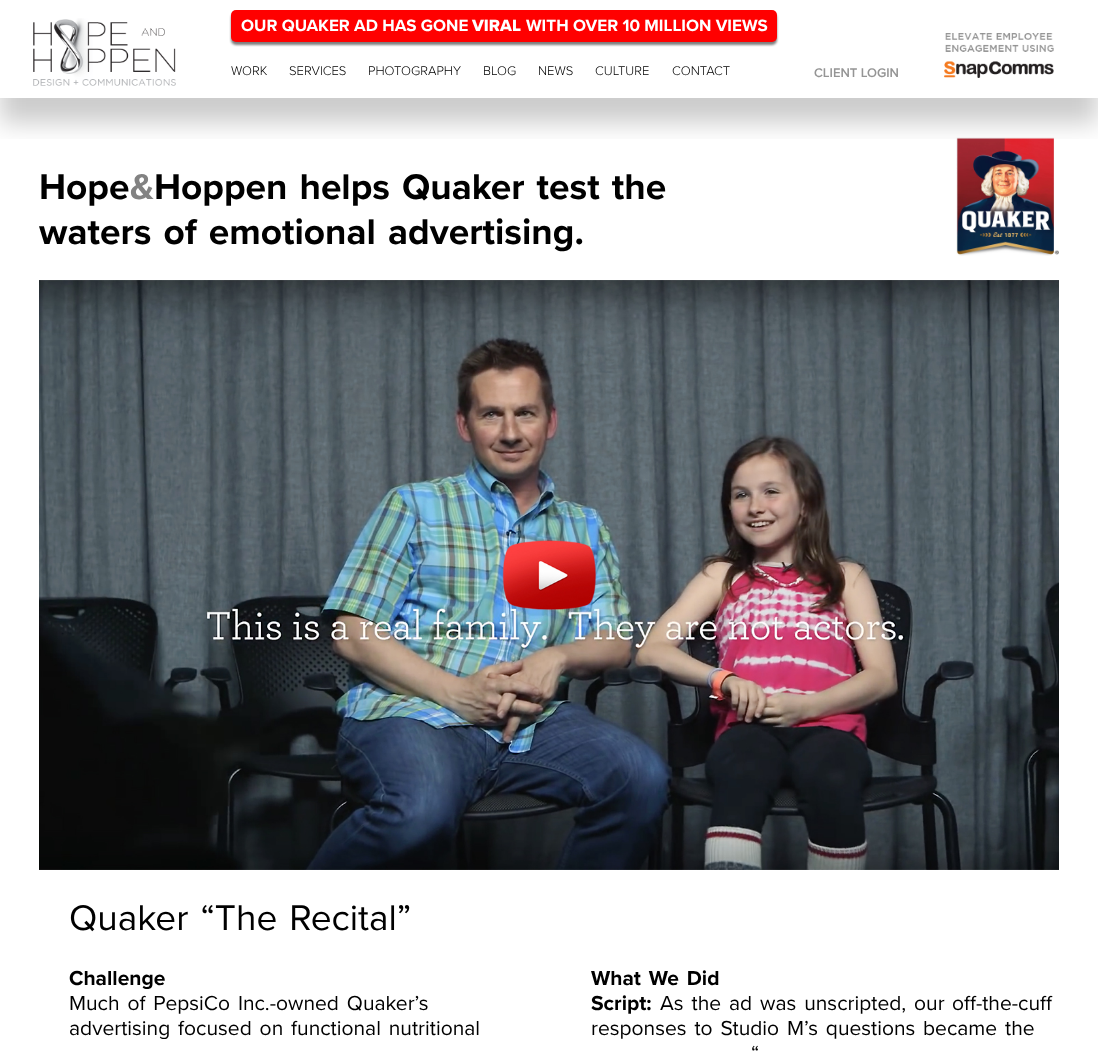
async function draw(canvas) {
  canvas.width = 1098;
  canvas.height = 1054;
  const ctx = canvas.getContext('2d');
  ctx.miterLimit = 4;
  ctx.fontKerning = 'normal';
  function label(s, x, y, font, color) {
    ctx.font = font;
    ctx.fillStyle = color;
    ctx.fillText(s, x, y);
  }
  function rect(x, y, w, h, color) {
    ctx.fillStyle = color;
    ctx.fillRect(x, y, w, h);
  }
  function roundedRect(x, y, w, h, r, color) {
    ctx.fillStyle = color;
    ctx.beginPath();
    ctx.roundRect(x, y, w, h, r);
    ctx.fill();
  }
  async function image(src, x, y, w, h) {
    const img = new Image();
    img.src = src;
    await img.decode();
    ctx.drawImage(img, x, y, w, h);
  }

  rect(0, 0, 1098, 1054, '#fff');
  await image('assets/img3.png', 956, 137, 103, 119);
  ctx.save();
  ctx.beginPath();
  ctx.rect(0, 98, 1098, 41);
  ctx.clip();
  ctx.fillStyle = '#00000033';
  ctx.filter = 'blur(12.5px)';
  ctx.beginPath();
  ctx.rect(0, 25, 1098, 98);
  ctx.fill();
  ctx.filter = 'none';
  ctx.restore();
  await image('assets/img1.png', 33, 18, 143, 68);
  ctx.fillStyle = '#00000080';
  ctx.filter = 'blur(1px)';
  ctx.beginPath();
  ctx.roundRect(231, 13, 546, 32, 5);
  ctx.fill();
  ctx.filter = 'none';
  roundedRect(231, 10, 546, 32, 5, '#f00');
  label('OUR QUAKER AD HAS GONE', 241, 31, 'bold 17px Proxima Nova', '#fff');
  label('VIRAL', 472, 31, '800 17px Proxima Nova', '#fff');
  label('WITH OVER 10 MILLION VIEWS', 526, 31, 'bold 17px Proxima Nova', '#fff');
  label('WORK', 231, 75, '300 13px Proxima Nova', '#000');
  label('SERVICES', 289, 75, '300 13px Proxima Nova', '#000');
  label('PHOTOGRAPHY', 368, 75, '300 13px Proxima Nova', '#000');
  label('BLOG', 483, 75, '300 13px Proxima Nova', '#000');
  label('NEWS', 538, 75, '300 13px Proxima Nova', '#000');
  label('CULTURE', 595, 75, '300 13px Proxima Nova', '#000');
  label('CONTACT', 672, 75, '300 13px Proxima Nova', '#000');
  label('CLIENT LOGIN', 814, 77, '600 13px Proxima Nova', '#959595');
  await image('assets/img2.png', 944, 33, 110, 45);
  label('Hope', 39, 199, 'bold 37px Proxima Nova', '#000');
  label('&', 130, 199, 'bold 37px Proxima Nova', '#828282');
  ctx.wordSpacing = '2.5px';
  label('Hoppen helps Quaker test the', 154, 199, 'bold 37px Proxima Nova', '#000');
  label('waters of emotional advertising.', 39, 244, 'bold 37px Proxima Nova', '#000');
  await image('assets/img4.png', 39, 280, 1020, 590);
  label('Quaker “The Recital”', 69, 930, '37px Proxima Nova', '#000');
  ctx.wordSpacing = '0px';
  label('Challenge', 69, 985, 'bold 21px Proxima Nova', '#000');
  ctx.wordSpacing = '2.5px';
  label('Much of PepsiCo Inc.-owned Quaker’s', 69, 1010, '21px Proxima Nova', '#000');
  label('advertising focused on functional nutritional', 69, 1035, '21px Proxima Nova', '#000');
  label('What We Did', 591, 985, 'bold 21px Proxima Nova', '#000');
  ctx.wordSpacing = '0px';
  label('Script:', 591, 1010, 'bold 21px Proxima Nova', '#000');
  ctx.wordSpacing = '2.5px';
  label('As the ad was unscripted, our', 660, 1010, '21px Proxima Nova', '#000');
  ctx.wordSpacing = '0px';
  label('off-the-cuff', 952, 1010, '21px Proxima Nova', '#000');
  ctx.wordSpacing = '2.5px';
  label('responses to Studio M’s questions', 591, 1035, '21px Proxima Nova', '#000');
  label('became the', 923, 1035, '21px Proxima Nova', '#000');
  label('“', 751, 1060, '21px Proxima Nova', '#000');
}

draw(document.querySelector('canvas'));
